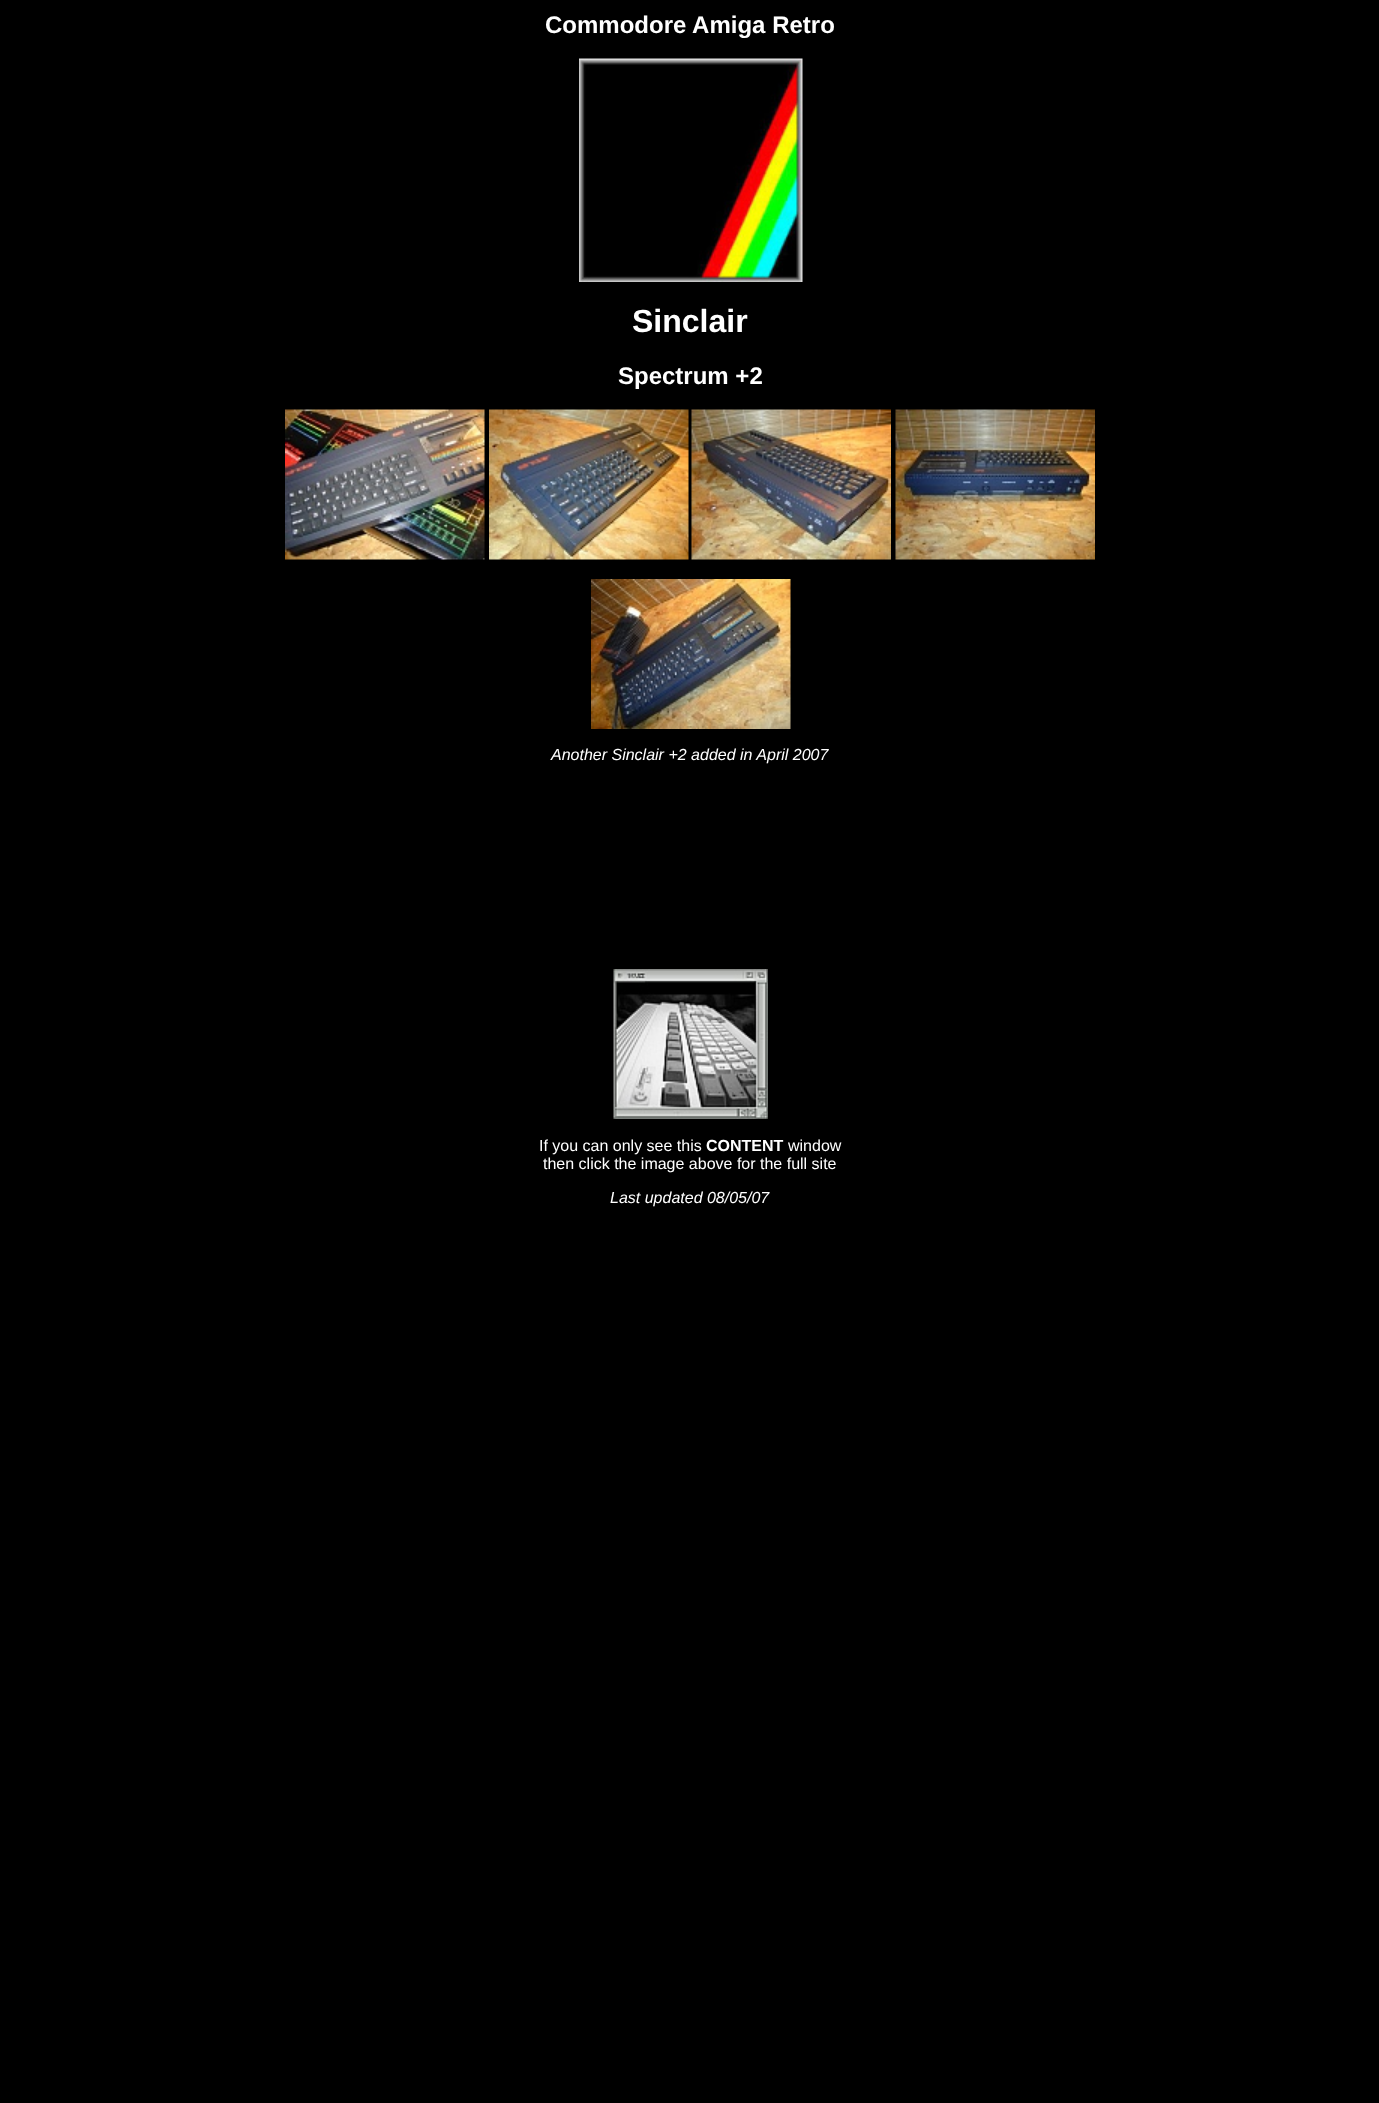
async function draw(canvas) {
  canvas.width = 1379;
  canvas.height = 2103;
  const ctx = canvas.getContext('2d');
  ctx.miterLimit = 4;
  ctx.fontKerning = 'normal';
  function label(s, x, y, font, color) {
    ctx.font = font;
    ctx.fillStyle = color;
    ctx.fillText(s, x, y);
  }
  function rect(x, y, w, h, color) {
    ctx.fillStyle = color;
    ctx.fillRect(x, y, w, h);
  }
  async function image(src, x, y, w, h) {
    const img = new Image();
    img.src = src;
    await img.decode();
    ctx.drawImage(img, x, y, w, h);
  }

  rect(0, 0, 1379, 2103, '#000');
  label('Commodore Amiga Retro', 545, 33, 'bold 24px Liberation Sans', '#fff');
  await image('assets/img1.png', 579, 58, 224, 224);
  label('Sinclair', 632, 332, 'bold 32px Liberation Sans', '#fff');
  label('Spectrum +2', 618, 384, 'bold 24px Liberation Sans', '#fff');
  await image('assets/img2.png', 285, 409, 200, 151);
  await image('assets/img3.png', 489, 409, 200, 151);
  await image('assets/img4.png', 691, 409, 200, 151);
  await image('assets/img5.png', 895, 409, 200, 151);
  await image('assets/img6.png', 591, 579, 200, 150);
  label('Another Sinclair +2 added in April 2007', 551, 760, 'italic 16px Liberation Sans', '#fff');
  await image('assets/img7.png', 613, 969, 155, 150);
  label('If you can only see this', 539, 1151, '16px Liberation Sans', '#fff');
  label('CONTENT', 706, 1151, 'bold 16px Liberation Sans', '#fff');
  label('window', 788, 1151, '16px Liberation Sans', '#fff');
  label('then click the image above for the full site', 543, 1169, '16px Liberation Sans', '#fff');
  label('Last updated 08/05/07', 610, 1203, 'italic 16px Liberation Sans', '#fff');
}

draw(document.querySelector('canvas'));
